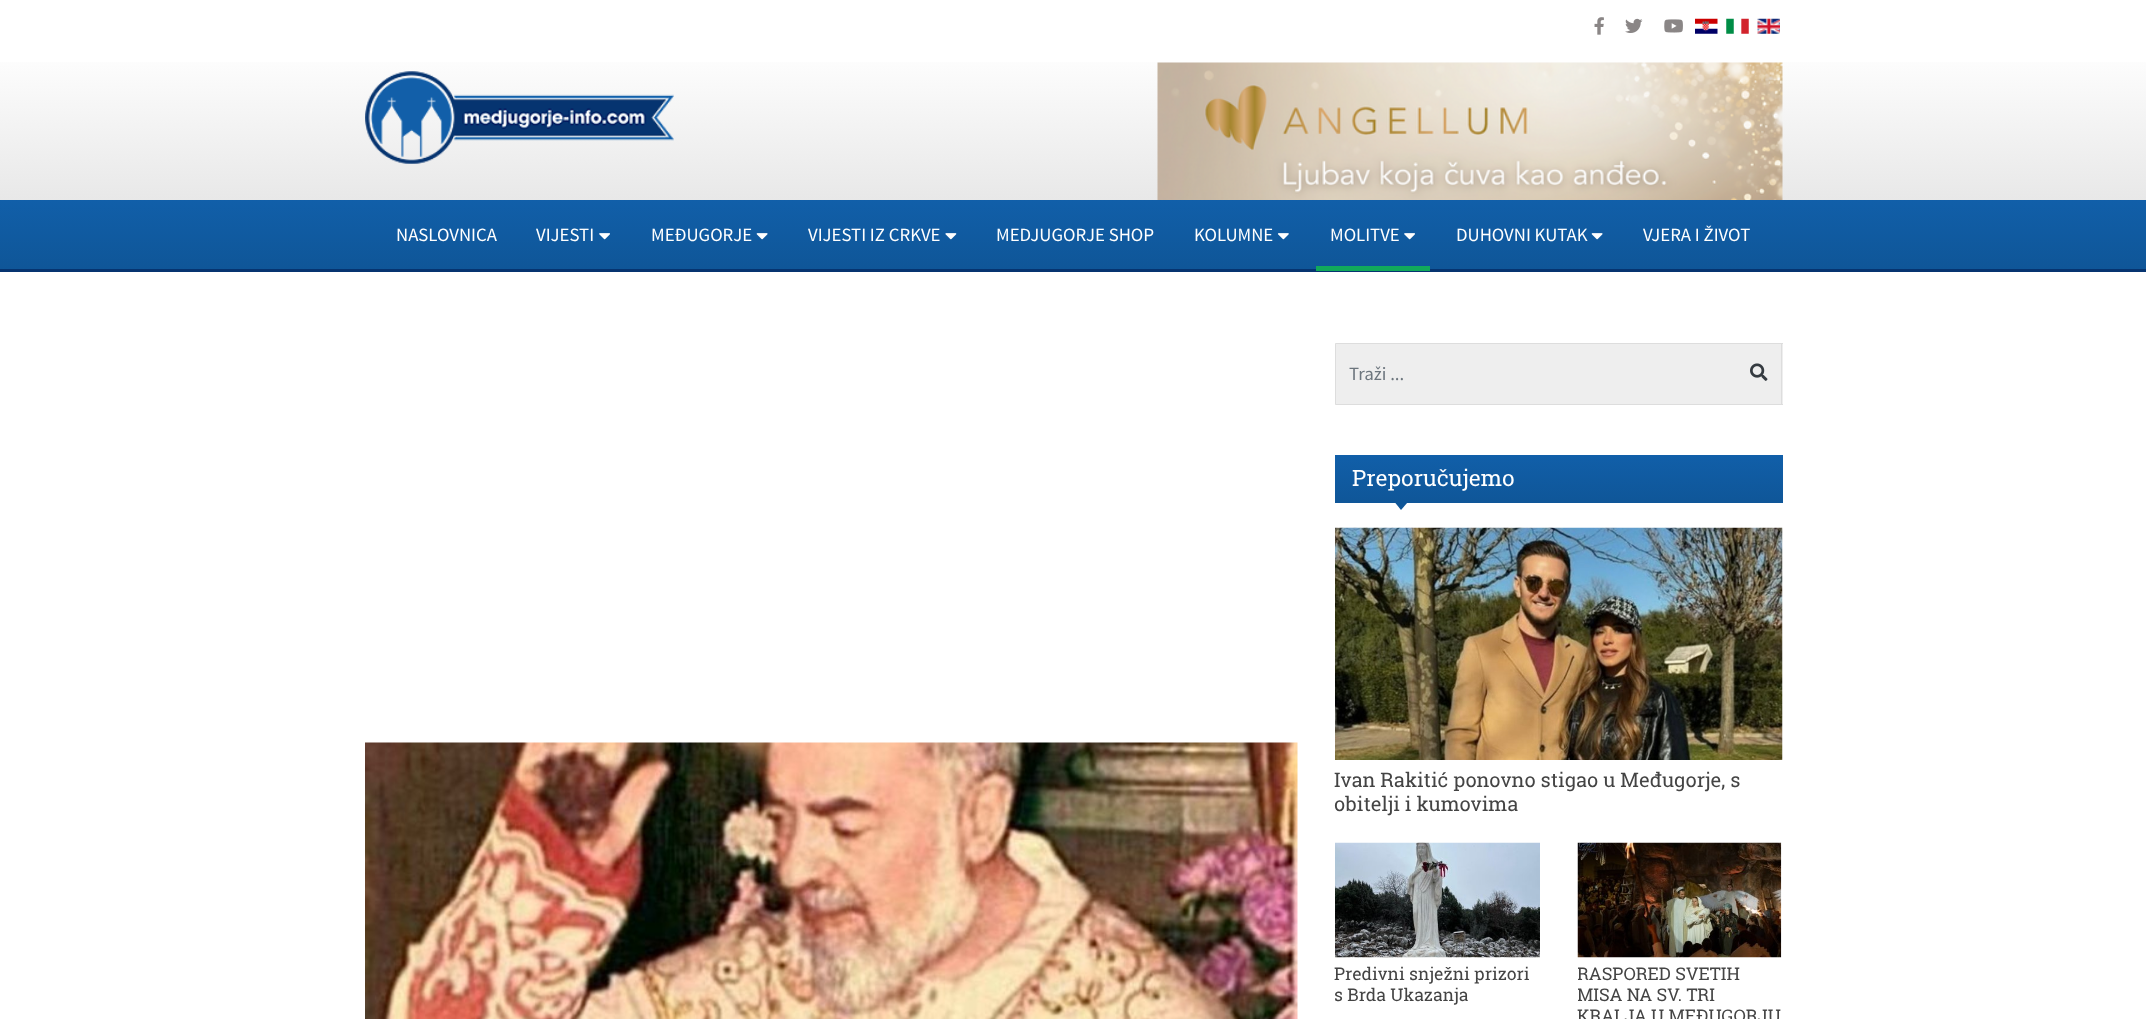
async function draw(canvas) {
  canvas.width = 2146;
  canvas.height = 1019;
  const ctx = canvas.getContext('2d');
  ctx.miterLimit = 4;
  ctx.fontKerning = 'normal';
  function label(s, x, y, font, color) {
    ctx.font = font;
    ctx.fillStyle = color;
    ctx.fillText(s, x, y);
  }
  function rect(x, y, w, h, color) {
    ctx.fillStyle = color;
    ctx.fillRect(x, y, w, h);
  }
  async function image(src, x, y, w, h) {
    const img = new Image();
    img.src = src;
    await img.decode();
    ctx.drawImage(img, x, y, w, h);
  }
  let gradient, path;

  rect(0, 0, 2146, 1019, '#fff');
  await image('assets/img1.png', 1594, 17, 10, 18);
  await image('assets/img2.png', 1625, 18, 18, 15);
  await image('assets/img3.png', 1664, 19, 19, 14);
  await image('assets/img4.png', 1695, 18, 23, 16);
  await image('assets/img5.png', 1726, 18, 23, 16);
  await image('assets/img6.png', 1757, 18, 23, 16);
  gradient = ctx.createLinearGradient(1073, 45, 1073, 200);
  gradient.addColorStop(0, '#fff');
  gradient.addColorStop(1, '#e8e8e8');
  ctx.fillStyle = gradient;
  ctx.fillRect(0, 62, 2146, 138);
  await image('assets/img7.png', 365, 71, 309, 93);
  await image('assets/img8.png', 1157, 62, 626, 138);
  gradient = ctx.createLinearGradient(1073, 200, 1073, 269);
  gradient.addColorStop(0, '#115fa9');
  gradient.addColorStop(1, '#0f5698');
  ctx.fillStyle = gradient;
  ctx.fillRect(0, 200, 2146, 69);
  rect(0, 269, 2146, 3, '#063470');
  label('NASLOVNICA', 396, 241, '18.75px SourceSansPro', '#fff');
  label('VIJESTI', 536, 241, '18.75px SourceSansPro', '#fff');
  await image('assets/img9.png', 599, 233, 11, 7);
  label('MEĐUGORJE', 651, 241, '18.75px SourceSansPro', '#fff');
  await image('assets/img10.png', 756, 233, 12, 7);
  label('VIJESTI IZ CRKVE', 808, 241, '18.75px SourceSansPro', '#fff');
  await image('assets/img11.png', 945, 233, 12, 7);
  label('MEDJUGORJE SHOP', 996, 241, '18.75px SourceSansPro', '#fff');
  label('KOLUMNE', 1194, 241, '18.75px SourceSansPro', '#fff');
  await image('assets/img12.png', 1277, 233, 12, 7);
  label('MOLITVE', 1330, 241, '18.75px SourceSansPro', '#fff');
  await image('assets/img9.png', 1404, 233, 11, 7);
  rect(1316, 266, 114, 5, '#11a95b');
  label('DUHOVNI KUTAK', 1456, 241, '18.75px SourceSansPro', '#fff');
  await image('assets/img10.png', 1591, 233, 12, 7);
  label('VJERA I ŽIVOT', 1643, 241, '18.75px SourceSansPro', '#fff');
  await image('assets/img13.png', 365, 742, 933, 277);
  ctx.fillStyle = '#eee';
  ctx.beginPath();
  ctx.rect(1335.5, 343.5, 403, 61);
  ctx.fill();
  ctx.strokeStyle = '#ddd';
  ctx.stroke();
  label('Traži ...', 1349, 380, '18.75px SourceSansPro', '#6c757d');
  rect(1738, 344, 45, 60, '#eee');
  rect(1738, 343, 45, 1, '#ddd');
  rect(1781, 343, 1, 62, '#ddd');
  rect(1738, 404, 45, 1, '#ddd');
  await image('assets/img14.png', 1750, 363, 18, 18);
  gradient = ctx.createLinearGradient(1559, 455, 1559, 503);
  gradient.addColorStop(0, '#115fa9');
  gradient.addColorStop(1, '#0f5698');
  ctx.fillStyle = gradient;
  ctx.fillRect(1335, 455, 448, 48);
  label('Preporučujemo', 1352, 486, '22.5px Roboto Slab', '#fff');
  ctx.fillStyle = '#0f5698';
  path = new Path2D('M1395 502.5H1407.5L1401 510Z');
  ctx.fill(path);
  await image('assets/img15.png', 1335, 527, 448, 233);
  label('Ivan Rakitić ponovno stigao u Međugorje, s', 1334, 787, '20px Roboto Slab', '#444');
  label('obitelji i kumovima', 1334, 811, '20px Roboto Slab', '#444');
  await image('assets/img16.png', 1335, 842, 205, 116);
  label('Predivni snježni prizori', 1334, 980, '17.5px Roboto Slab', '#444');
  label('s Brda Ukazanja', 1334, 1001, '17.5px Roboto Slab', '#444');
  await image('assets/img17.png', 1577, 842, 205, 116);
  ctx.save();
  ctx.beginPath();
  ctx.rect(1578, 964, 203, 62);
  ctx.clip();
  label('RASPORED SVETIH', 1577, 980, '17.5px Roboto Slab', '#444');
  label('MISA NA SV. TRI', 1577, 1001, '17.5px Roboto Slab', '#444');
  ctx.restore();
  label('KRALJA U MEĐUGORJU', 1577, 1022, '17.5px Roboto Slab', '#444');
}

draw(document.querySelector('canvas'));
